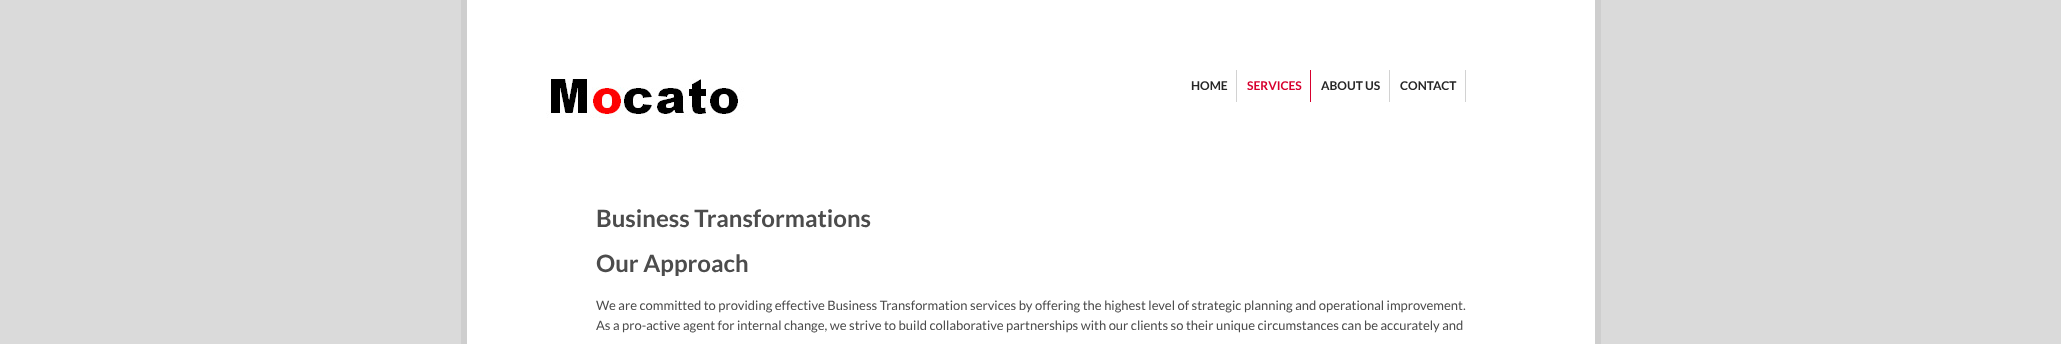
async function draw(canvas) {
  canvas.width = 2061;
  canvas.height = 344;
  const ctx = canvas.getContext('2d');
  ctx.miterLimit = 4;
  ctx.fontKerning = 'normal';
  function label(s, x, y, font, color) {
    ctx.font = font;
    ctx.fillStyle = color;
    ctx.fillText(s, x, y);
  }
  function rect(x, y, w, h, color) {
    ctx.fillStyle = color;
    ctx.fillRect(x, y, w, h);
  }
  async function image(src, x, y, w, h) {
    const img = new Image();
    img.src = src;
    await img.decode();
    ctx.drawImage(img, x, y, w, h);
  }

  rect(0, 0, 2061, 344, '#dadada');
  await image('assets/img1.png', 461, 0, 1140, 344);
  await image('assets/img2.png', 546, 79, 198, 39);
  rect(1236, 70, 1, 32, '#d2d2d2');
  label('HOME', 1191, 90, 'bold 12px Lato', '#262626');
  rect(1310, 70, 1, 32, '#d7002e');
  label('SERVICES', 1247, 90, 'bold 12px Lato', '#d7002e');
  rect(1389, 70, 1, 32, '#d2d2d2');
  label('ABOUT US', 1321, 90, 'bold 12px Lato', '#262626');
  rect(1465, 70, 1, 32, '#d2d2d2');
  label('CONTACT', 1400, 90, 'bold 12px Lato', '#262626');
  label('Business Transformations', 596, 227, 'bold 24px Lato', '#4c4c4c');
  label('Our Approach', 596, 272, 'bold 24px Lato', '#4c4c4c');
  label('We are committed to providing effective Business Transformation services by offering the highest level of strategic planning and operational improvement.', 596, 310, '13px Lato', '#4c4c4c');
  label('As a pro-active agent for internal change, we strive to build collaborative partnerships with our clients so their unique circumstances can be accurately and', 596, 330, '13px Lato', '#4c4c4c');
}

draw(document.querySelector('canvas'));
